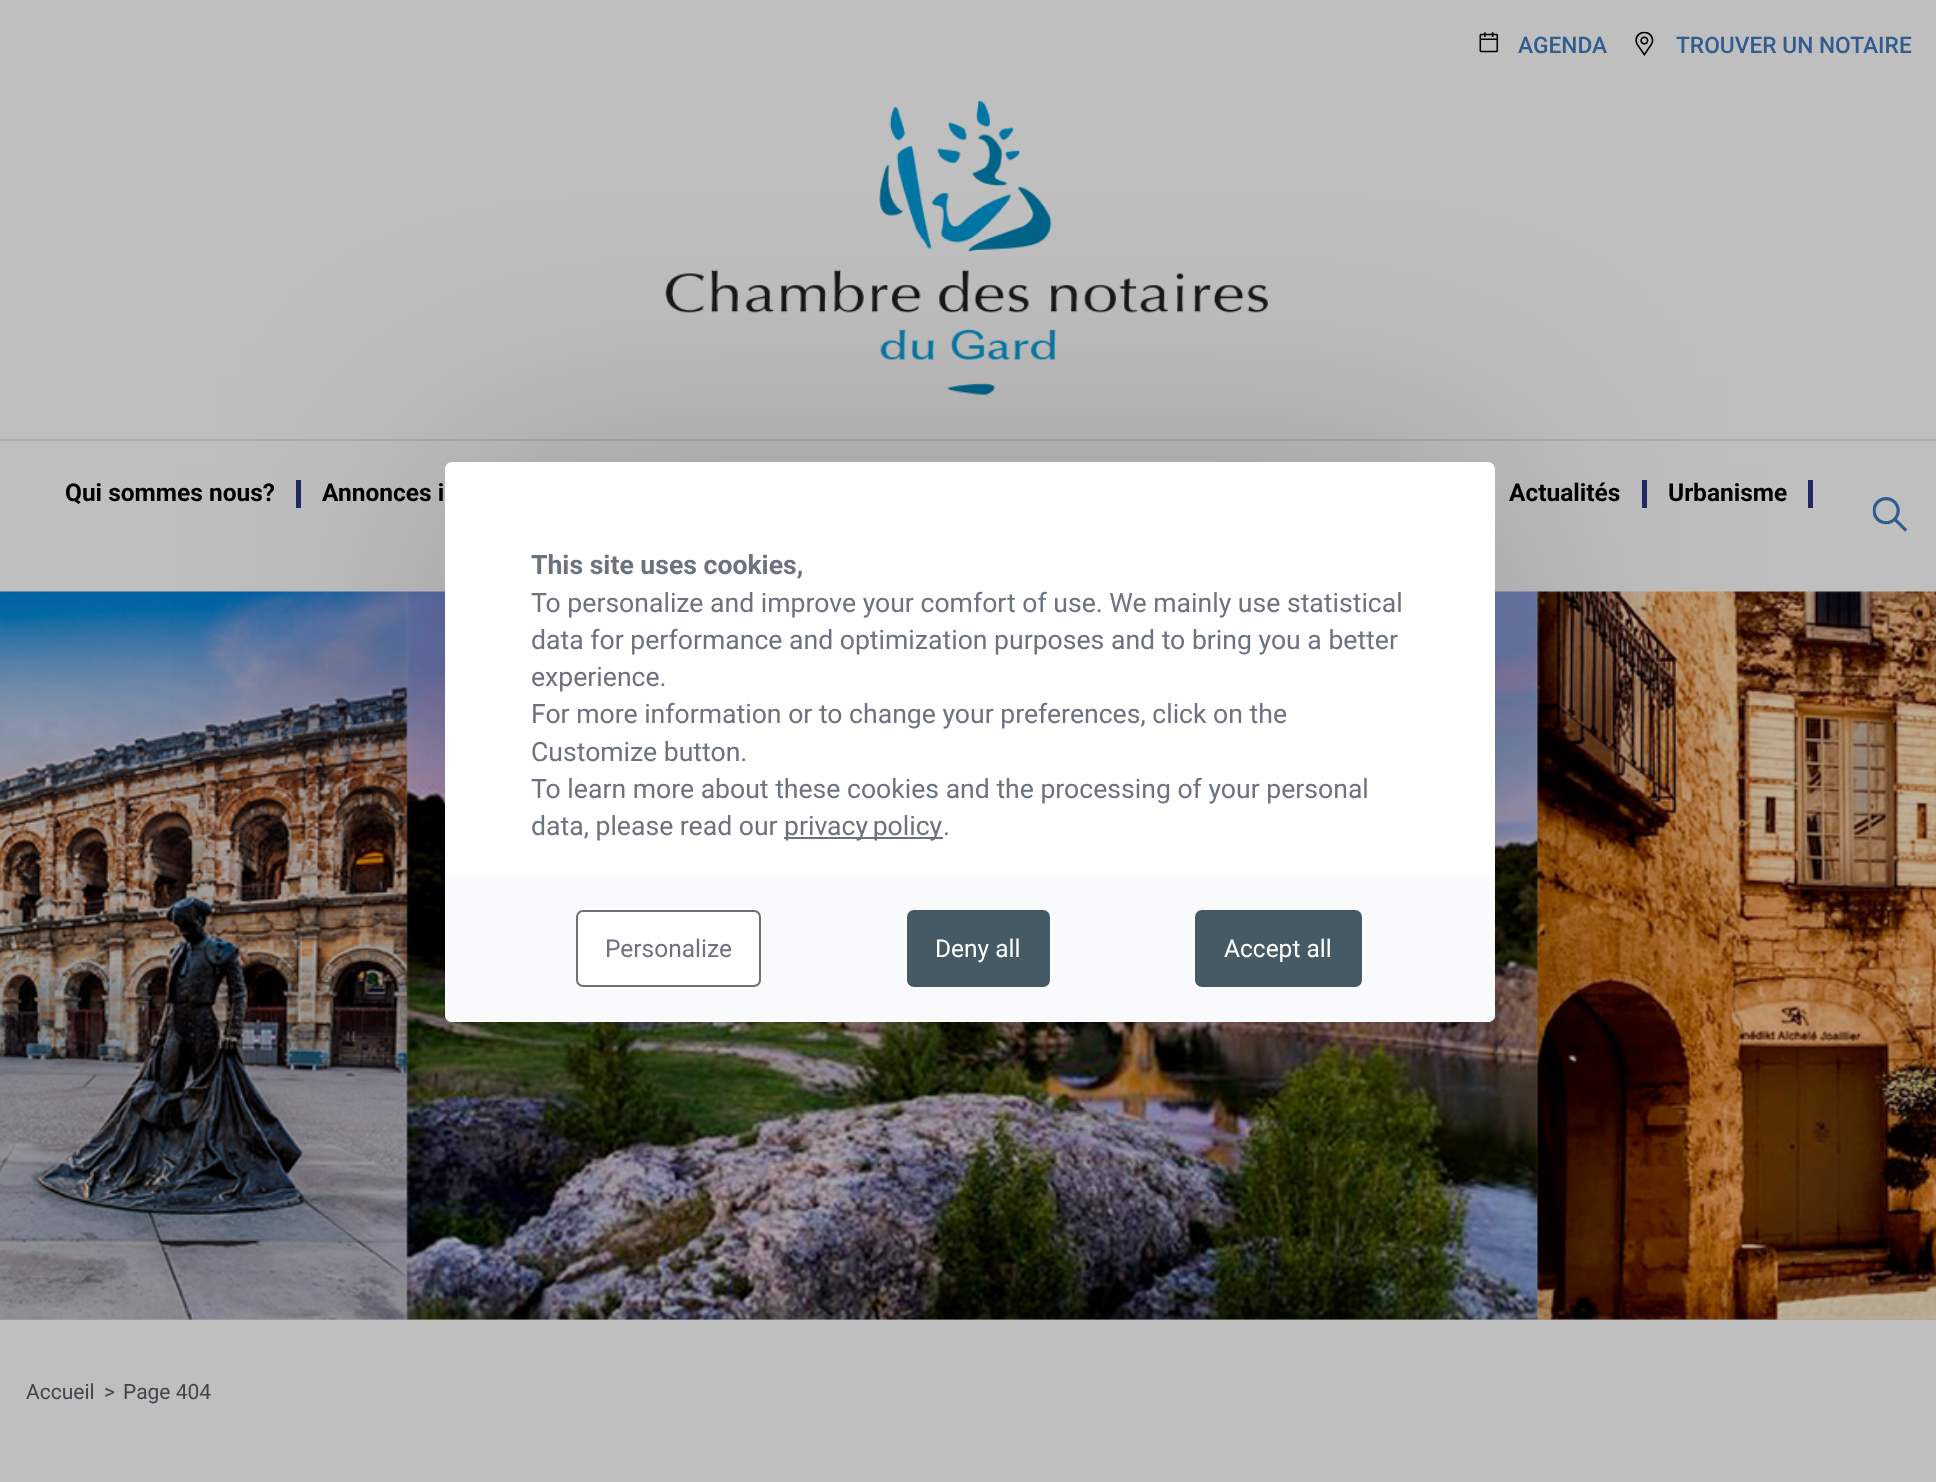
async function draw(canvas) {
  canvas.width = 1936;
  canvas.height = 1482;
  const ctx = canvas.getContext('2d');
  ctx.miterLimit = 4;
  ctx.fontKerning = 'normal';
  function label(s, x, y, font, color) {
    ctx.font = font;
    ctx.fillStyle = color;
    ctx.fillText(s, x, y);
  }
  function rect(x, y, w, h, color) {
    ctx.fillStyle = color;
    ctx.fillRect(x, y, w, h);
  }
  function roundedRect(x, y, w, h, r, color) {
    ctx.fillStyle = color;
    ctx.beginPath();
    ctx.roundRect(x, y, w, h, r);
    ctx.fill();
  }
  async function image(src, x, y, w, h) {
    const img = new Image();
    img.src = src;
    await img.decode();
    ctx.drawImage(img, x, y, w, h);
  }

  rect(0, 0, 1936, 1482, '#bfbfbf');
  await image('assets/img1.png', 1479, 32, 20, 21);
  label('AGENDA', 1518, 53, '500 22.75px Roboto', '#305c8f');
  await image('assets/img2.png', 1635, 31, 19, 25);
  label('TROUVER UN NOTAIRE', 1676, 53, '500 22.75px Roboto', '#305c8f');
  await image('assets/img3.png', 665, 100, 603, 295);
  rect(0, 439, 1936, 2, '#adadad');
  label('Qui sommes nous?', 65, 501, 'bold 24.5px Roboto', '#000');
  rect(296, 480, 5, 28, '#222865');
  label('Annonces i', 322, 501, 'bold 24.5px Roboto', '#000');
  label('Actualités', 1509, 501, 'bold 24.5px Roboto', '#000');
  rect(1642, 480, 5, 28, '#222865');
  label('Urbanisme', 1668, 501, 'bold 24.5px Roboto', '#000');
  rect(1808, 480, 5, 28, '#222865');
  await image('assets/img4.png', 1872, 497, 36, 35);
  rect(0, 1319, 1936, 1, '#a2a2a2');
  await image('assets/img5.png', 0, 591, 1936, 729);
  ctx.fillStyle = '#00000033';
  ctx.filter = 'blur(131px)';
  ctx.beginPath();
  ctx.roundRect(445, 462, 1050, 560, 7);
  ctx.fill();
  ctx.filter = 'none';
  roundedRect(445, 462, 1050, 560, 7, '#fff');
  label('This site uses cookies,', 531, 574, 'bold 26.6px Roboto', '#6b7280');
  label('To personalize and improve your comfort of use. We mainly use statistical', 531, 612, '26.6px Roboto', '#6b7280');
  label('data for performance and optimization purposes and to bring you a better', 531, 649, '26.6px Roboto', '#6b7280');
  label('experience.', 531, 686, '26.6px Roboto', '#6b7280');
  label('For more information or to change your preferences, click on the', 531, 723, '26.6px Roboto', '#6b7280');
  label('Customize button.', 531, 761, '26.6px Roboto', '#6b7280');
  label('To learn more about these cookies and the processing of your personal', 531, 798, '26.6px Roboto', '#6b7280');
  label('data, please read our', 531, 835, '26.6px Roboto', '#6b7280');
  rect(784, 837, 159, 2, '#6b7280');
  ctx.wordSpacing = '-2px';
  label('privacy policy', 784, 835, '26.6px Roboto', '#6b7280');
  ctx.wordSpacing = '0px';
  label('.', 943, 835, '26.6px Roboto', '#6b7280');
  ctx.fillStyle = '#f9fafb';
  ctx.beginPath();
  ctx.roundRect(445, 875, 1050, 147, [0, 0, 7, 7]);
  ctx.fill();
  ctx.fillStyle = '#fff';
  ctx.beginPath();
  ctx.roundRect(577, 911, 183, 75, 6);
  ctx.fill();
  ctx.strokeStyle = '#707070';
  ctx.lineWidth = 2;
  ctx.stroke();
  label('Personalize', 605, 957, '24.5px Roboto', '#6b7280');
  ctx.fillStyle = '#455a64';
  ctx.beginPath();
  ctx.roundRect(908, 911, 141, 75, 6);
  ctx.fill();
  ctx.strokeStyle = '#455a64';
  ctx.stroke();
  label('Deny all', 935, 957, '24.5px Roboto', '#fff');
  ctx.fillStyle = '#455a64';
  ctx.beginPath();
  ctx.roundRect(1196, 911, 165, 75, 6);
  ctx.fill();
  ctx.stroke();
  label('Accept all', 1224, 957, '24.5px Roboto', '#fff');
  label('Accueil', 26, 1399, '21px Roboto', '#44454c');
  label('>', 104, 1399, '21px Roboto', '#44454c');
  label('Page 404', 123, 1399, '21px Roboto', '#44454c');
}

draw(document.querySelector('canvas'));
